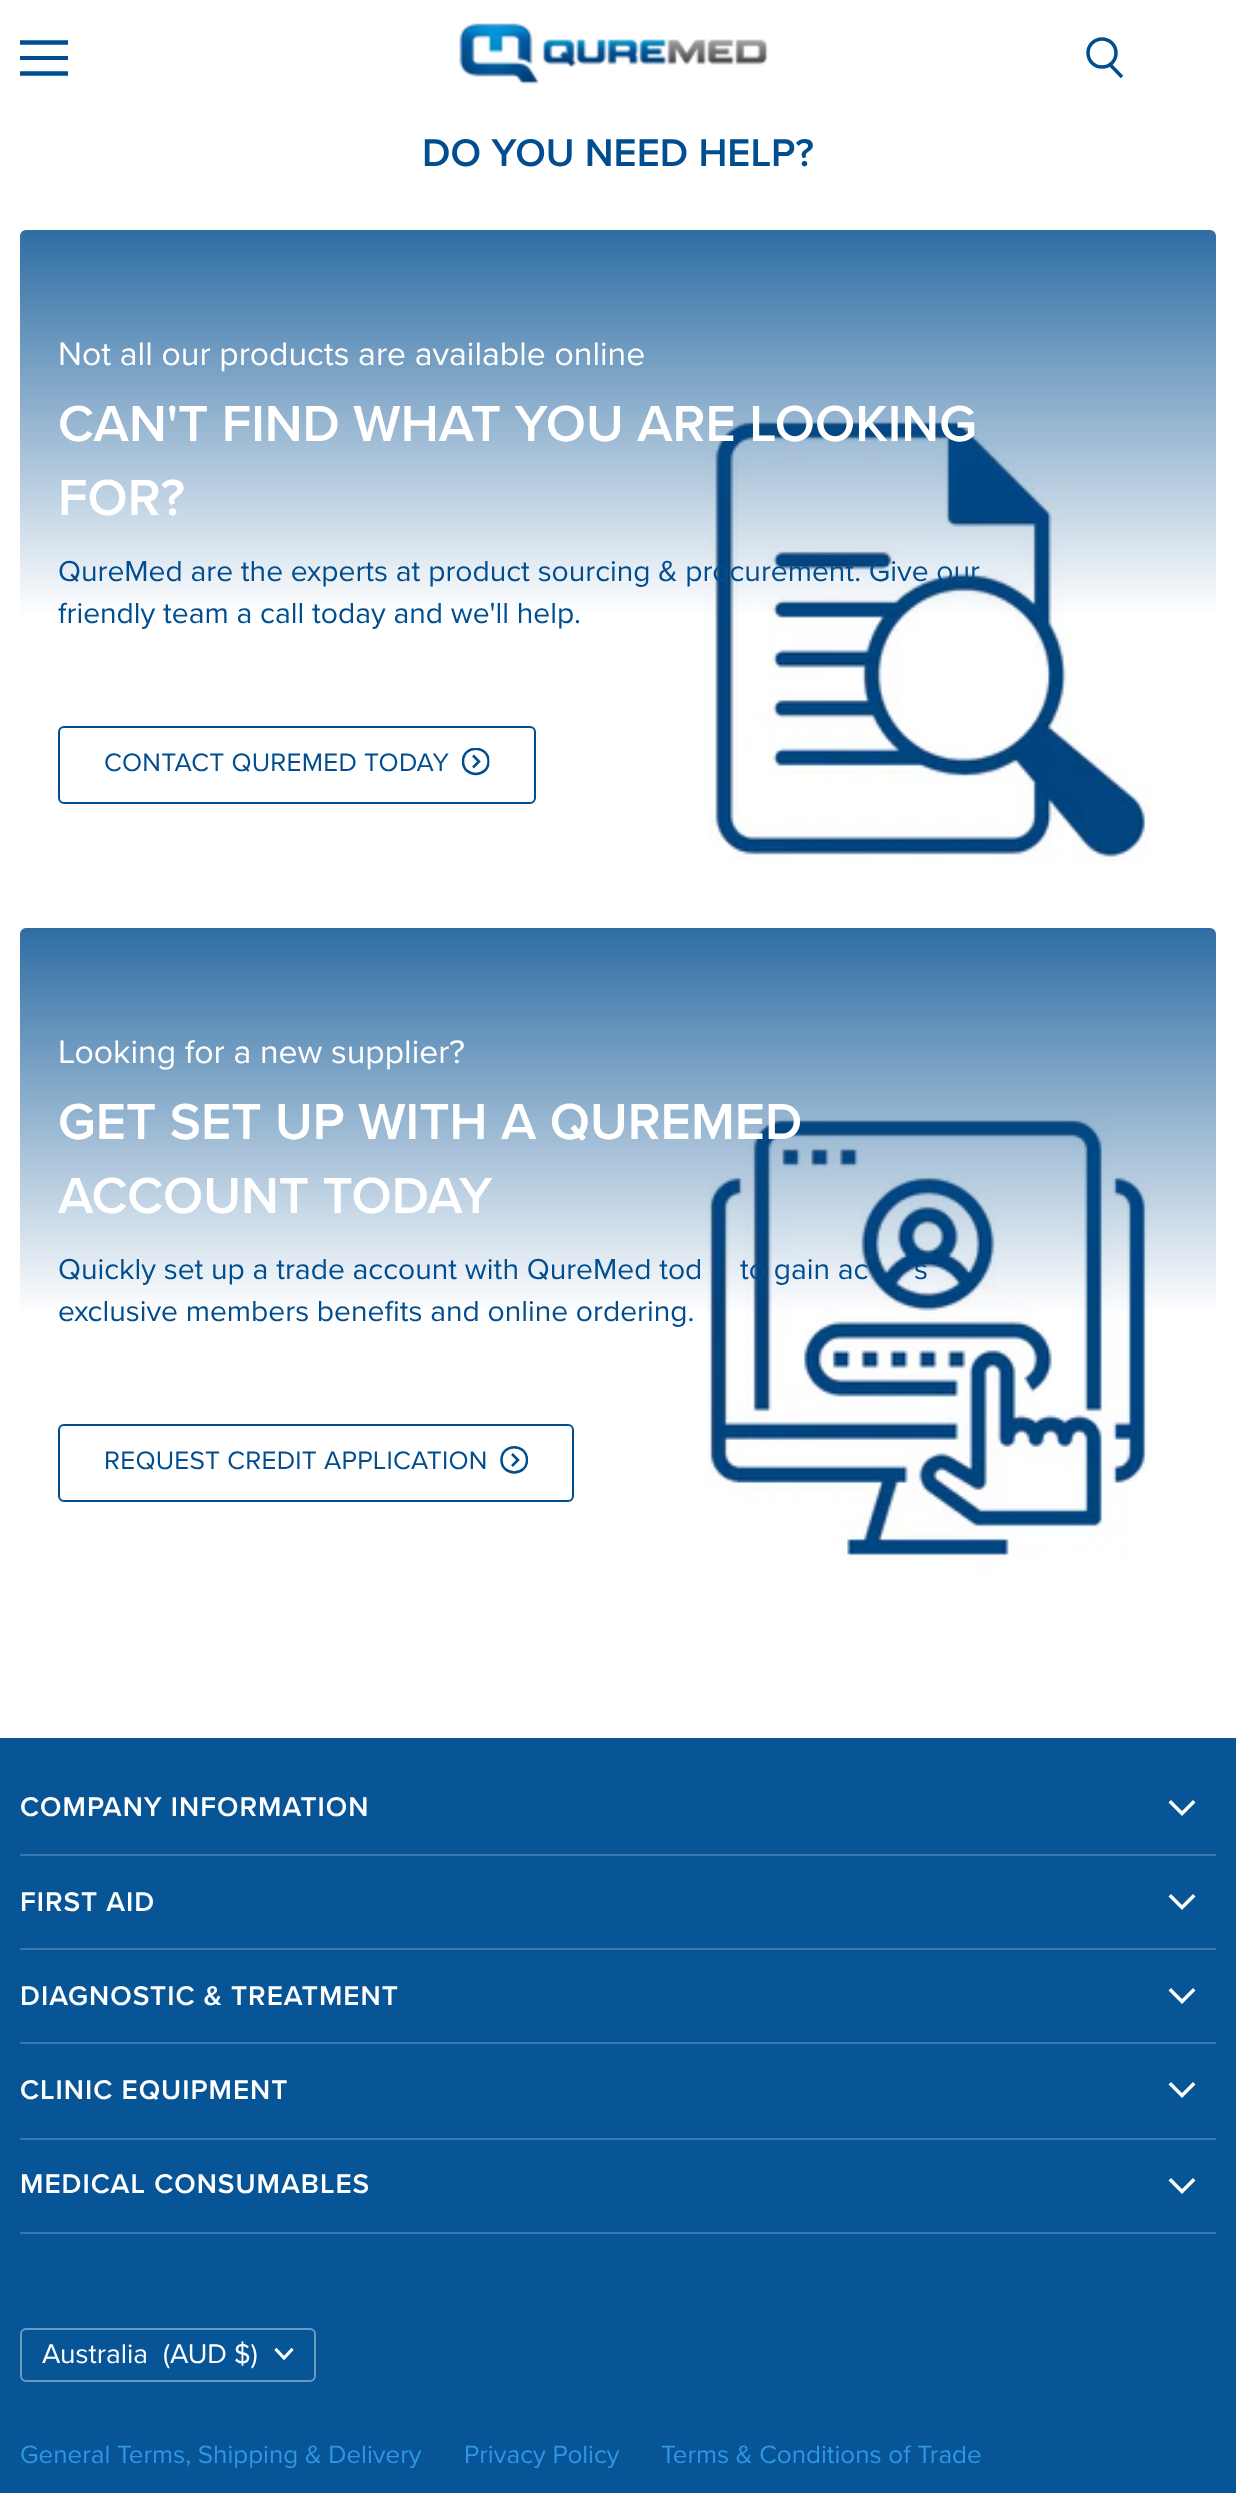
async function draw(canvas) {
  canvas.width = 1236;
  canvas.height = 2493;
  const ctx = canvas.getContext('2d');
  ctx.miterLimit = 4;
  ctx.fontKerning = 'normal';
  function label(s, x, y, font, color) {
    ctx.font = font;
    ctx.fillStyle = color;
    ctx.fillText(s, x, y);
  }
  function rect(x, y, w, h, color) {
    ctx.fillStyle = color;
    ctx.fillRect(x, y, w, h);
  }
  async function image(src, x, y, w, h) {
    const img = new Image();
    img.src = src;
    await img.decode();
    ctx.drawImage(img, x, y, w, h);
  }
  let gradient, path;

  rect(0, 0, 1236, 2493, '#fff');
  ctx.save();
  ctx.beginPath();
  ctx.rect(20, 34, 48, 48);
  ctx.clip();
  path = new Path2D('M66 42.5H22');
  ctx.strokeStyle = '#004d8f';
  ctx.lineWidth = 4.4;
  ctx.lineCap = 'square';
  ctx.lineJoin = 'round';
  ctx.stroke(path);
  ctx.restore();
  rect(20, 56, 48, 4, '#004d8f');
  ctx.save();
  ctx.beginPath();
  ctx.rect(20, 34, 48, 48);
  ctx.clip();
  path = new Path2D('M66 73.5H22');
  ctx.strokeStyle = '#004d8f';
  ctx.lineWidth = 4.4;
  ctx.lineCap = 'square';
  ctx.lineJoin = 'round';
  ctx.stroke(path);
  ctx.restore();
  await image('assets/img1.png', 459, 23, 310, 62);
  path = new Path2D('M1122 77L1110 64.5');
  ctx.strokeStyle = '#004d8f';
  ctx.lineWidth = 3.5;
  ctx.stroke(path);
  ctx.beginPath();
  ctx.arc(1102, 53, 14, 0, 2 * Math.PI);
  ctx.stroke();
  label('DO YOU NEED HELP?', 422, 166, '600 40px Proxima Nova', '#004d8f');
  await image('assets/img2.png', 20, 230, 1196, 678);
  gradient = ctx.createLinearGradient(618, 908, 618, 230);
  gradient.addColorStop(0.43, '#004d8f00');
  gradient.addColorStop(1, '#004d8fd1');
  ctx.fillStyle = gradient;
  ctx.beginPath();
  ctx.roundRect(20, 230, 1196, 678, 6);
  ctx.fill();
  label('Not all our products are available online', 58, 365, '33.75px Proxima Nova', '#fff');
  label('CAN\'T FIND WHAT YOU ARE LOOKING', 58, 441, '600 52.5px Proxima Nova', '#fff');
  label('FOR?', 58, 515, '600 52.5px Proxima Nova', '#fff');
  label('QureMed are the experts at product sourcing & procurement. Give our', 58, 581, '30px Proxima Nova', '#004d8f');
  label('friendly team a call today and we\'ll help.', 58, 623, '30px Proxima Nova', '#004d8f');
  ctx.beginPath();
  ctx.roundRect(59, 727, 476, 76, 5);
  ctx.lineWidth = 2;
  ctx.stroke();
  ctx.letterSpacing = '0.25px';
  label('CONTACT QUREMED TODAY', 104, 771, '26.25px Proxima Nova', '#004d8f');
  path = new Path2D('M473 767.5L479 761.5L473 755.5');
  ctx.lineWidth = 2.5;
  ctx.stroke(path);
  ctx.save();
  path = new Path2D('M461.5 776V748H489.5V776Z');
  ctx.clip(path);
  path = new Path2D('M463 761.5C463 744.5 488.5 744.5 488.5 761.5C488.5 778 463 778 463 761.5Z');
  ctx.stroke(path);
  ctx.restore();
  await image('assets/img3.png', 20, 928, 1196, 678);
  gradient = ctx.createLinearGradient(618, 1606, 618, 928);
  gradient.addColorStop(0.43, '#004d8f00');
  gradient.addColorStop(1, '#004d8fd1');
  ctx.fillStyle = gradient;
  ctx.beginPath();
  ctx.roundRect(20, 928, 1196, 678, 6);
  ctx.fill();
  ctx.letterSpacing = '0px';
  label('Looking for a new supplier?', 58, 1063, '33.75px Proxima Nova', '#fff');
  label('GET SET UP WITH A QUREMED', 58, 1139, '600 52.5px Proxima Nova', '#fff');
  label('ACCOUNT TODAY', 58, 1213, '600 52.5px Proxima Nova', '#fff');
  label('Quickly set up a trade account with QureMed tod', 58, 1279, '30px Proxima Nova', '#004d8f');
  label('to gain ac', 740, 1279, '30px Proxima Nova', '#004d8f');
  label('s', 914, 1279, '30px Proxima Nova', '#004d8f');
  label('exclusive members benefits and online ordering.', 58, 1321, '30px Proxima Nova', '#004d8f');
  ctx.beginPath();
  ctx.roundRect(59, 1425, 514, 76, 5);
  ctx.lineWidth = 2;
  ctx.stroke();
  ctx.letterSpacing = '0.25px';
  label('REQUEST CREDIT APPLICATION', 104, 1469, '26.25px Proxima Nova', '#004d8f');
  path = new Path2D('M512 1466L518 1460L512 1454');
  ctx.lineWidth = 2.5;
  ctx.stroke(path);
  ctx.save();
  path = new Path2D('M500 1474V1446H528V1474Z');
  ctx.clip(path);
  path = new Path2D('M501.5 1460C501.5 1443 527 1443 527 1460C527 1476.5 501.5 1476.5 501.5 1460Z');
  ctx.stroke(path);
  ctx.restore();
  rect(0, 1738, 1236, 755, '#075597');
  rect(20, 1854, 1196, 2, '#3977ac');
  ctx.letterSpacing = '1px';
  label('COMPANY INFORMATION', 20, 1816, '600 28px Proxima Nova', '#fff');
  path = new Path2D('M1182 1813.5L1193 1802.5M1182 1813.5L1171 1802.5');
  ctx.strokeStyle = '#fff';
  ctx.lineWidth = 3.5;
  ctx.lineCap = 'square';
  ctx.stroke(path);
  rect(20, 1948, 1196, 2, '#3977ac');
  label('FIRST AID', 20, 1911, '600 28px Proxima Nova', '#fff');
  path = new Path2D('M1182 1907.5L1193 1896.5M1182 1907.5L1171 1896.5');
  ctx.stroke(path);
  rect(20, 2042, 1196, 2, '#3977ac');
  label('DIAGNOSTIC & TREATMENT', 20, 2005, '600 28px Proxima Nova', '#fff');
  path = new Path2D('M1182 2001.5L1193 1990.5M1182 2001.5L1171 1990.5');
  ctx.stroke(path);
  rect(20, 2138, 1196, 2, '#3977ac');
  label('CLINIC EQUIPMENT', 20, 2099, '600 28px Proxima Nova', '#fff');
  path = new Path2D('M1182 2095.5L1193 2084.5M1182 2095.5L1171 2084.5');
  ctx.stroke(path);
  rect(20, 2232, 1196, 2, '#3977ac');
  label('MEDICAL CONSUMABLES', 20, 2193, '600 28px Proxima Nova', '#fff');
  path = new Path2D('M1182 2191.5L1193 2180.5M1182 2191.5L1171 2180.5');
  ctx.stroke(path);
  ctx.beginPath();
  ctx.roundRect(21, 2329, 294, 52, 5);
  ctx.strokeStyle = '#6a99c1';
  ctx.lineWidth = 2;
  ctx.stroke();
  ctx.letterSpacing = '0px';
  label('Australia', 42, 2363, '28px Proxima Nova', '#fff');
  label('(AUD $)', 163, 2363, '28px Proxima Nova', '#fff');
  path = new Path2D('M284 2358L291.5 2350M284 2358L276.5 2350');
  ctx.strokeStyle = '#fff';
  ctx.lineWidth = 3.1;
  ctx.stroke(path);
  label('General Terms, Shipping & Delivery', 20, 2463, '26px Proxima Nova', '#2e96e2');
  label('Privacy Policy', 464, 2463, '26px Proxima Nova', '#2e96e2');
  label('Terms & Conditions of Trade', 661, 2463, '26px Proxima Nova', '#2e96e2');
}

draw(document.querySelector('canvas'));
